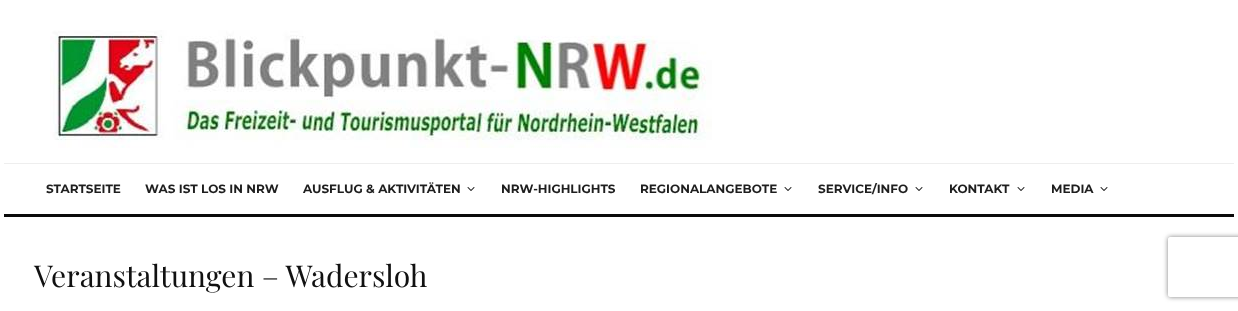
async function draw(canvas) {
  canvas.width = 1238;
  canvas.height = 311;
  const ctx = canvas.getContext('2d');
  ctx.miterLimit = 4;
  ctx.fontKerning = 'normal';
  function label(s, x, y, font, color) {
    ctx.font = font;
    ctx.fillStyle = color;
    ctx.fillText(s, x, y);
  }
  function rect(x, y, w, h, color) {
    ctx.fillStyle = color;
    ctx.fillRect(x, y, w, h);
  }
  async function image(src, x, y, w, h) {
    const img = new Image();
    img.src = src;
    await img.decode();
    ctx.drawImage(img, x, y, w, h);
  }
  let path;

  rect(0, 0, 1238, 311, '#fff');
  await image('assets/img1.png', 50, 30, 662, 118);
  rect(4, 163, 1230, 1, '#eee');
  rect(4, 214, 1230, 3, '#0a0a0a');
  label('STARTSEITE', 46, 193, 'bold 12px Montserrat', '#1e1e1e');
  label('WAS IST LOS IN NRW', 145, 193, 'bold 12px Montserrat', '#1e1e1e');
  label('AUSFLUG & AKTIVITÄTEN', 303, 193, 'bold 12px Montserrat', '#1e1e1e');
  await image('assets/img2.png', 467, 187, 8, 4);
  label('NRW-HIGHLIGHTS', 501, 193, 'bold 12px Montserrat', '#1e1e1e');
  label('REGIONALANGEBOTE', 640, 193, 'bold 12px Montserrat', '#1e1e1e');
  await image('assets/img2.png', 784, 187, 8, 4);
  label('SERVICE/INFO', 818, 193, 'bold 12px Montserrat', '#1e1e1e');
  await image('assets/img2.png', 915, 187, 8, 4);
  label('KONTAKT', 949, 193, 'bold 12px Montserrat', '#1e1e1e');
  await image('assets/img2.png', 1017, 187, 8, 4);
  label('MEDIA', 1051, 193, 'bold 12px Montserrat', '#1e1e1e');
  await image('assets/img2.png', 1100, 187, 8, 4);
  label('Veranstaltungen – Wadersloh', 34, 287, '30px Playfair Display', '#111');
  ctx.save();
  path = new Path2D('M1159 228H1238V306H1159ZM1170 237H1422C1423 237 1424 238 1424 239V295C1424 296 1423 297 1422 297H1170C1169 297 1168 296 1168 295V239C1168 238 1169 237 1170 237Z');
  ctx.clip(path, 'evenodd');
  ctx.fillStyle = '#808080';
  ctx.filter = 'blur(2.5px)';
  ctx.beginPath();
  ctx.roundRect(1168, 237, 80, 60, 2);
  ctx.fill();
  ctx.filter = 'none';
  ctx.restore();
}

draw(document.querySelector('canvas'));
